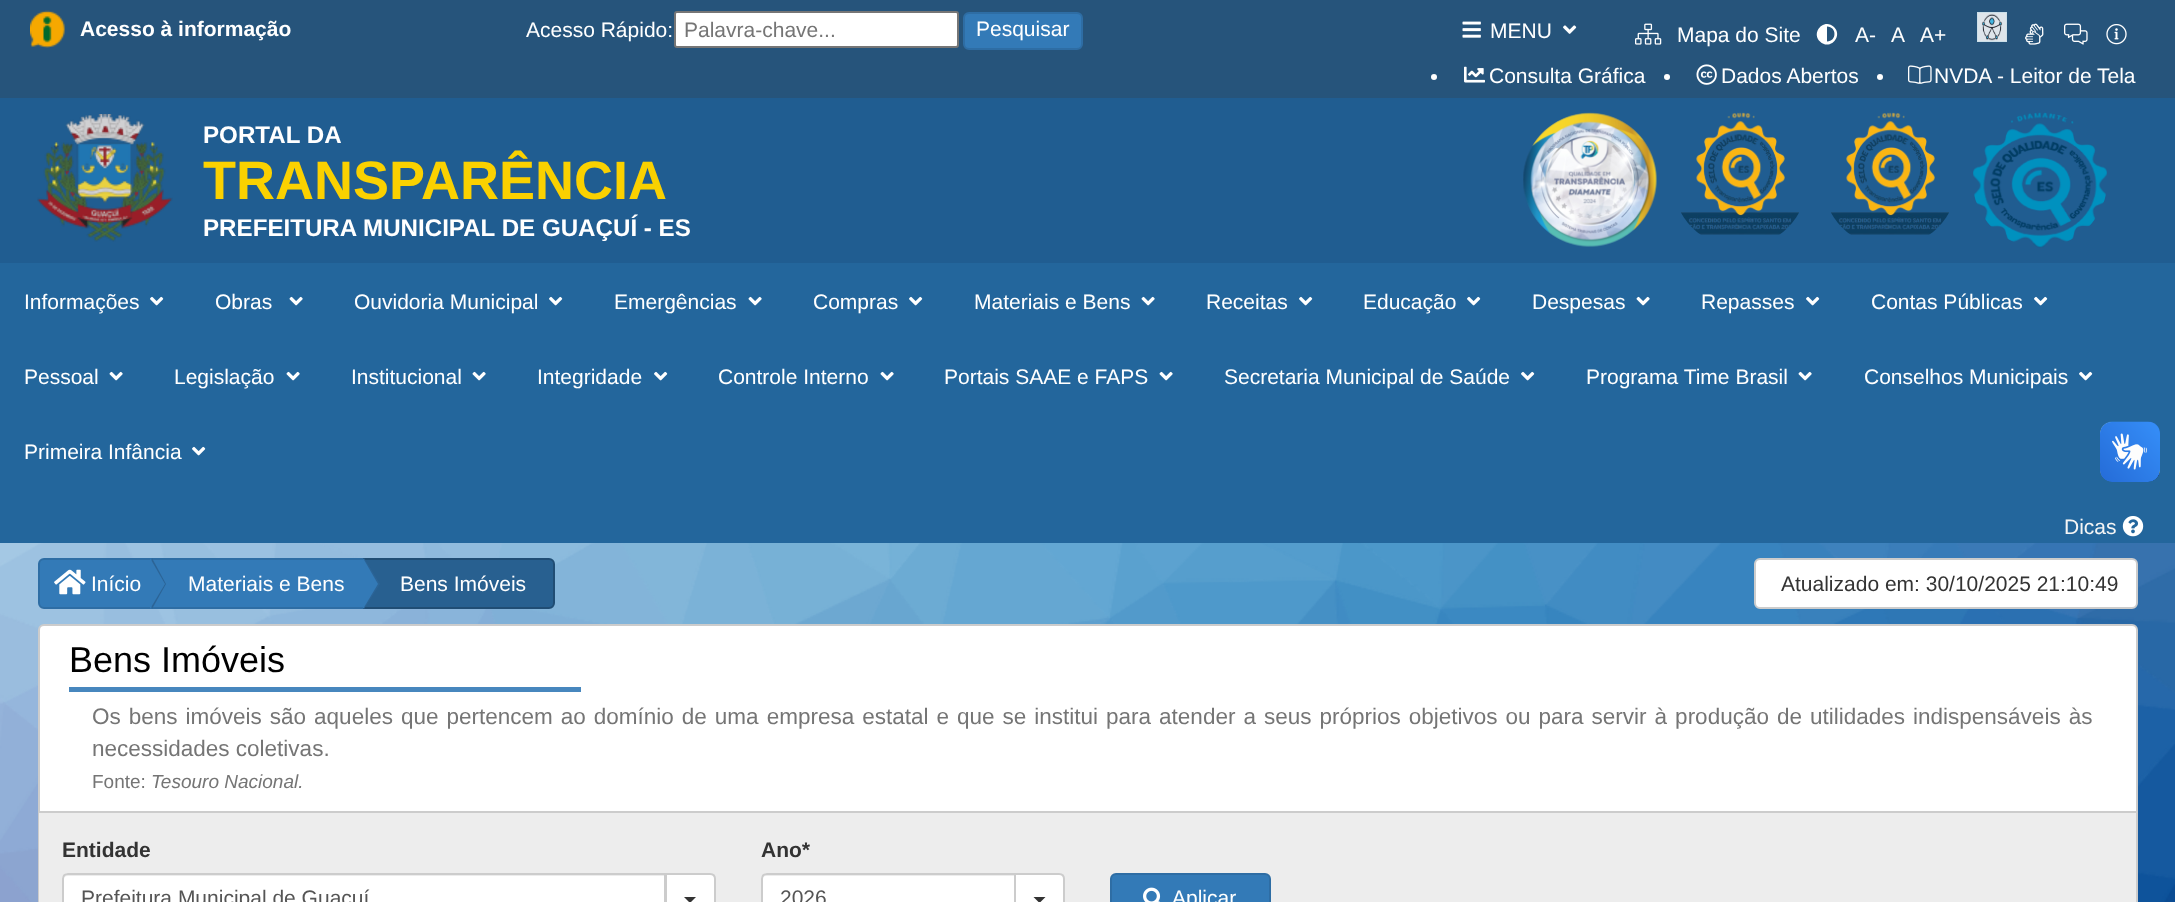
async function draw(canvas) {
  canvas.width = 2175;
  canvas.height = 902;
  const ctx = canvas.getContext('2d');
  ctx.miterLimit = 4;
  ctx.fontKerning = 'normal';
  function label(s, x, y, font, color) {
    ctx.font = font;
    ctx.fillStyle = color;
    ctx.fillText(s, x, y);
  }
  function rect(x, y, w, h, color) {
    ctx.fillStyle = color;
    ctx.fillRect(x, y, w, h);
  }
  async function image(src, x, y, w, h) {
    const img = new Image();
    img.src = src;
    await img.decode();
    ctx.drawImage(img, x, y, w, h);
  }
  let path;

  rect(0, 0, 2175, 902, '#fff');
  rect(0, 0, 2175, 98, '#26547b');
  await image('assets/img1.png', 30, 10, 35, 38);
  label('Acesso à informação', 80, 36, 'bold 21px Liberation Sans', '#fff');
  label('Acesso Rápido:', 526, 37, '21px Liberation Sans', '#fff');
  ctx.beginPath();
  ctx.roundRect(675, 12, 283, 35, 2);
  ctx.fill();
  ctx.strokeStyle = '#767676';
  ctx.lineWidth = 2;
  ctx.stroke();
  label('Palavra-chave...', 684, 37, '21px Liberation Sans', '#757575');
  ctx.fillStyle = '#337ab7';
  ctx.beginPath();
  ctx.roundRect(964, 13, 118, 36, 5);
  ctx.fill();
  ctx.strokeStyle = '#2e6da4';
  ctx.stroke();
  label('Pesquisar', 976, 36, '21px Liberation Sans', '#fff');
  await image('assets/img2.png', 1462, 21, 19, 17);
  label('MENU', 1490, 38, '21px Liberation Sans', '#fff');
  await image('assets/img3.png', 1563, 25, 14, 9);
  await image('assets/img4.png', 1635, 23, 27, 22);
  label('Mapa do Site', 1677, 42, '21px Liberation Sans', '#fff');
  path = new Path2D('M1820 41.5C1810.5 32 1824.5 17.5 1834 27C1843.5 36.5 1829.5 51 1820 41.5ZM1827 41.5C1837 41.5 1837 26.5 1827 26.5Z');
  ctx.fill(path);
  label('A-', 1855, 42, '21px Liberation Sans', '#fff');
  label('A', 1891, 42, '21px Liberation Sans', '#fff');
  label('A+', 1920, 42, '21px Liberation Sans', '#fff');
  await image('assets/img5.png', 1977, 12, 30, 30);
  await image('assets/img6.png', 2025, 23, 19, 22);
  await image('assets/img7.png', 2064, 23, 24, 22);
  await image('assets/img8.png', 2106, 24, 21, 21);
  ctx.beginPath();
  ctx.arc(1434, 77, 3, 0, 2 * Math.PI);
  ctx.fill();
  await image('assets/img9.png', 1464, 66, 21, 17);
  label('Consulta Gráfica', 1489, 83, '21px Liberation Sans', '#fff');
  ctx.beginPath();
  ctx.arc(1667, 77, 3, 0, 2 * Math.PI);
  ctx.fill();
  await image('assets/img10.png', 1696, 64, 21, 21);
  label('Dados Abertos', 1721, 83, '21px Liberation Sans', '#fff');
  ctx.beginPath();
  ctx.arc(1880, 77, 3, 0, 2 * Math.PI);
  ctx.fill();
  await image('assets/img11.png', 1908, 65, 24, 19);
  label('NVDA - Leitor de Tela', 1934, 83, '21px Liberation Sans', '#fff');
  rect(0, 98, 2175, 165, '#205d91');
  await image('assets/img12.png', 37, 114, 136, 128);
  label('PORTAL DA', 203, 143, 'bold 24.15px Liberation Sans', '#fff');
  label('TRANSPARÊNCIA', 203, 199, 'bold 54px Liberation Sans', '#fad100');
  label('PREFEITURA MUNICIPAL DE GUAÇUÍ - ES', 203, 236, 'bold 24.15px Liberation Sans', '#fff');
  await image('assets/img13.png', 1523, 112, 134, 135);
  await image('assets/img14.png', 1681, 112, 118, 123);
  await image('assets/img15.png', 1831, 112, 118, 123);
  await image('assets/img16.png', 1973, 112, 134, 136);
  rect(0, 263, 2175, 280, '#23669c');
  label('Informações', 24, 309, '21px Liberation Sans', '#fff');
  await image('assets/img17.png', 150, 296, 14, 10);
  label('Obras', 215, 309, '21px Liberation Sans', '#fff');
  await image('assets/img18.png', 289, 296, 14, 10);
  label('Ouvidoria Municipal', 354, 309, '21px Liberation Sans', '#fff');
  await image('assets/img17.png', 549, 296, 14, 10);
  label('Emergências', 614, 309, '21px Liberation Sans', '#fff');
  await image('assets/img18.png', 748, 296, 14, 10);
  label('Compras', 813, 309, '21px Liberation Sans', '#fff');
  await image('assets/img17.png', 909, 296, 14, 10);
  label('Materiais e Bens', 974, 309, '21px Liberation Sans', '#fff');
  await image('assets/img18.png', 1141, 296, 14, 10);
  label('Receitas', 1206, 309, '21px Liberation Sans', '#fff');
  await image('assets/img17.png', 1299, 296, 14, 10);
  label('Educação', 1363, 309, '21px Liberation Sans', '#fff');
  await image('assets/img17.png', 1467, 296, 14, 10);
  label('Despesas', 1532, 309, '21px Liberation Sans', '#fff');
  await image('assets/img18.png', 1636, 296, 14, 10);
  label('Repasses', 1701, 309, '21px Liberation Sans', '#fff');
  await image('assets/img17.png', 1806, 296, 14, 10);
  label('Contas Públicas', 1871, 309, '21px Liberation Sans', '#fff');
  await image('assets/img17.png', 2034, 296, 14, 10);
  label('Pessoal', 24, 384, '21px Liberation Sans', '#fff');
  await image('assets/img18.png', 109, 371, 14, 10);
  label('Legislação', 174, 384, '21px Liberation Sans', '#fff');
  await image('assets/img18.png', 286, 371, 14, 10);
  label('Institucional', 351, 384, '21px Liberation Sans', '#fff');
  await image('assets/img18.png', 472, 371, 14, 10);
  label('Integridade', 537, 384, '21px Liberation Sans', '#fff');
  await image('assets/img17.png', 654, 371, 14, 10);
  label('Controle Interno', 718, 384, '21px Liberation Sans', '#fff');
  await image('assets/img18.png', 880, 371, 14, 10);
  label('Portais SAAE e FAPS', 944, 384, '21px Liberation Sans', '#fff');
  await image('assets/img18.png', 1159, 371, 14, 10);
  label('Secretaria Municipal de Saúde', 1224, 384, '21px Liberation Sans', '#fff');
  await image('assets/img17.png', 1521, 371, 14, 10);
  label('Programa Time Brasil', 1586, 384, '21px Liberation Sans', '#fff');
  await image('assets/img18.png', 1798, 371, 14, 10);
  label('Conselhos Municipais', 1864, 384, '21px Liberation Sans', '#fff');
  await image('assets/img17.png', 2079, 371, 14, 10);
  label('Primeira Infância', 24, 459, '21px Liberation Sans', '#fff');
  await image('assets/img17.png', 192, 446, 14, 10);
  label('Dicas', 2064, 534, '21px Liberation Sans', '#f5f5f5');
  await image('assets/img19.png', 2122, 516, 22, 21);
  await image('assets/img24.png', 0, 543, 2175, 359);
  ctx.fillStyle = '#337ab7';
  ctx.beginPath();
  ctx.roundRect(39, 559, 112, 49, [5, 0, 0, 5]);
  ctx.fill();
  ctx.stroke();
  rect(153, 560, 210, 47, '#337ab7');
  ctx.strokeRect(151, 559, 213, 49);
  ctx.fillStyle = '#2c6496';
  path = new Path2D('M152 609V558L166 584Z');
  ctx.fill(path);
  ctx.fillStyle = '#337ab7';
  path = new Path2D('M150 609V558L165 584Z');
  ctx.fill(path);
  await image('assets/img20.png', 54, 569, 32, 26);
  label('Início', 91, 591, '21px Liberation Sans', '#fff');
  ctx.fillStyle = '#286090';
  ctx.beginPath();
  ctx.roundRect(364, 559, 190, 49, [0, 5, 5, 0]);
  ctx.fill();
  ctx.strokeStyle = '#204d74';
  ctx.stroke();
  ctx.fillStyle = '#2c6496';
  path = new Path2D('M364 609V558L380 584Z');
  ctx.fill(path);
  ctx.fillStyle = '#337ab7';
  path = new Path2D('M363 609V558L378 584Z');
  ctx.fill(path);
  label('Materiais e Bens', 188, 591, '21px Liberation Sans', '#fff');
  label('Bens Imóveis', 400, 591, '21px Liberation Sans', '#fff');
  ctx.beginPath();
  ctx.roundRect(1755, 559, 382, 49, 5);
  ctx.fill();
  ctx.strokeStyle = '#ccc';
  ctx.stroke();
  label('Atualizado em: 30/10/2025 21:10:49', 1781, 591, '21px Liberation Sans', '#333');
  ctx.fillStyle = '#fff';
  ctx.beginPath();
  ctx.roundRect(39, 625, 2098, 187, [5, 5, 0, 0]);
  ctx.fill();
  ctx.stroke();
  label('Bens Imóveis', 69, 672, '36px Liberation Sans', '#000');
  rect(69, 687, 512, 5, '#4787be');
  ctx.wordSpacing = '1.75px';
  label('Os bens imóveis são aqueles que pertencem ao domínio de uma empresa estatal e que se institui para atender a seus próprios objetivos ou para servir à produção de utilidades indispensáveis às', 92, 724, '22.5px Liberation Sans', '#757575');
  ctx.wordSpacing = '0px';
  label('necessidades coletivas.', 92, 756, '22.5px Liberation Sans', '#757575');
  label('Fonte:', 92, 788, '19px Liberation Sans', '#757575');
  label('Tesouro Nacional.', 151, 788, 'italic 19px Liberation Sans', '#757575');
  ctx.fillStyle = '#ccc';
  path = new Path2D('M38 813H2138V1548C2138 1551 2135 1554 2132 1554H44C40 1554 38 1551 38 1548ZM39 813H2136V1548C2136 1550 2134 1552 2132 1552H44C41 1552 39 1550 39 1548Z');
  ctx.fill(path, 'evenodd');
  rect(39, 813, 2097, 89, '#ededed');
  label('Entidade', 62, 857, 'bold 21px Liberation Sans', '#333');
  ctx.fillStyle = '#fff';
  path = new Path2D('M666 874H710C713 874 715 876 715 879V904C715 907 713 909 710 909H666Z');
  ctx.fill(path);
  ctx.stroke(path);
  path = new Path2D('M68 873H666V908H68C64.5 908 62 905.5 62 902V879C62 875.5 64.5 873 68 873Z');
  ctx.fill(path);
  ctx.fillStyle = '#ececec';
  path = new Path2D('M68 876H664V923H665V875H68C65 875 63 877 63 880C63 878 65 876 68 876Z');
  ctx.fill(path);
  path = new Path2D('M68 874H665V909H68C65 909 63 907 63 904V879C63 876 65 874 68 874Z');
  ctx.stroke(path);
  label('Prefeitura Municipal de Guaçuí', 81, 905, '21px Liberation Sans', '#555');
  ctx.fillStyle = '#333';
  path = new Path2D('M684 897H696L690 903Z');
  ctx.fill(path);
  label('Ano', 761, 857, 'bold 21px Liberation Sans', '#333');
  label('*', 801, 857, 'italic bold 21px Liberation Sans', '#333');
  ctx.fillStyle = '#fff';
  path = new Path2D('M1015 874H1059C1062 874 1064 876 1064 879V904C1064 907 1062 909 1059 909H1015Z');
  ctx.fill(path);
  ctx.stroke(path);
  path = new Path2D('M767 873H1016V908H767C763.5 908 761 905.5 761 902V879C761 875.5 763.5 873 767 873Z');
  ctx.fill(path);
  ctx.fillStyle = '#ececec';
  path = new Path2D('M766 876H1014V875H767C764 875 762 877 762 880C762 878 764 876 766 876Z');
  ctx.fill(path);
  path = new Path2D('M767 874H1015V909H767C764 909 762 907 762 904V879C762 876 764 874 767 874Z');
  ctx.stroke(path);
  label('2026', 780, 905, '21px Liberation Sans', '#555');
  ctx.fillStyle = '#333';
  path = new Path2D('M1033.5 897H1045.5L1039.5 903Z');
  ctx.fill(path);
  ctx.fillStyle = '#337ab7';
  ctx.beginPath();
  ctx.roundRect(1111, 874, 159, 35, 5);
  ctx.fill();
  ctx.strokeStyle = '#2e6da4';
  ctx.stroke();
  await image('assets/img21.png', 1143, 887, 18, 15);
  label('Aplicar', 1172, 905, '21px Liberation Sans', '#fff');
  await image('assets/img22.png', 2100, 421, 60, 61);
  await image('assets/img23.png', 2100, 422, 60, 60);
}

draw(document.querySelector('canvas'));
